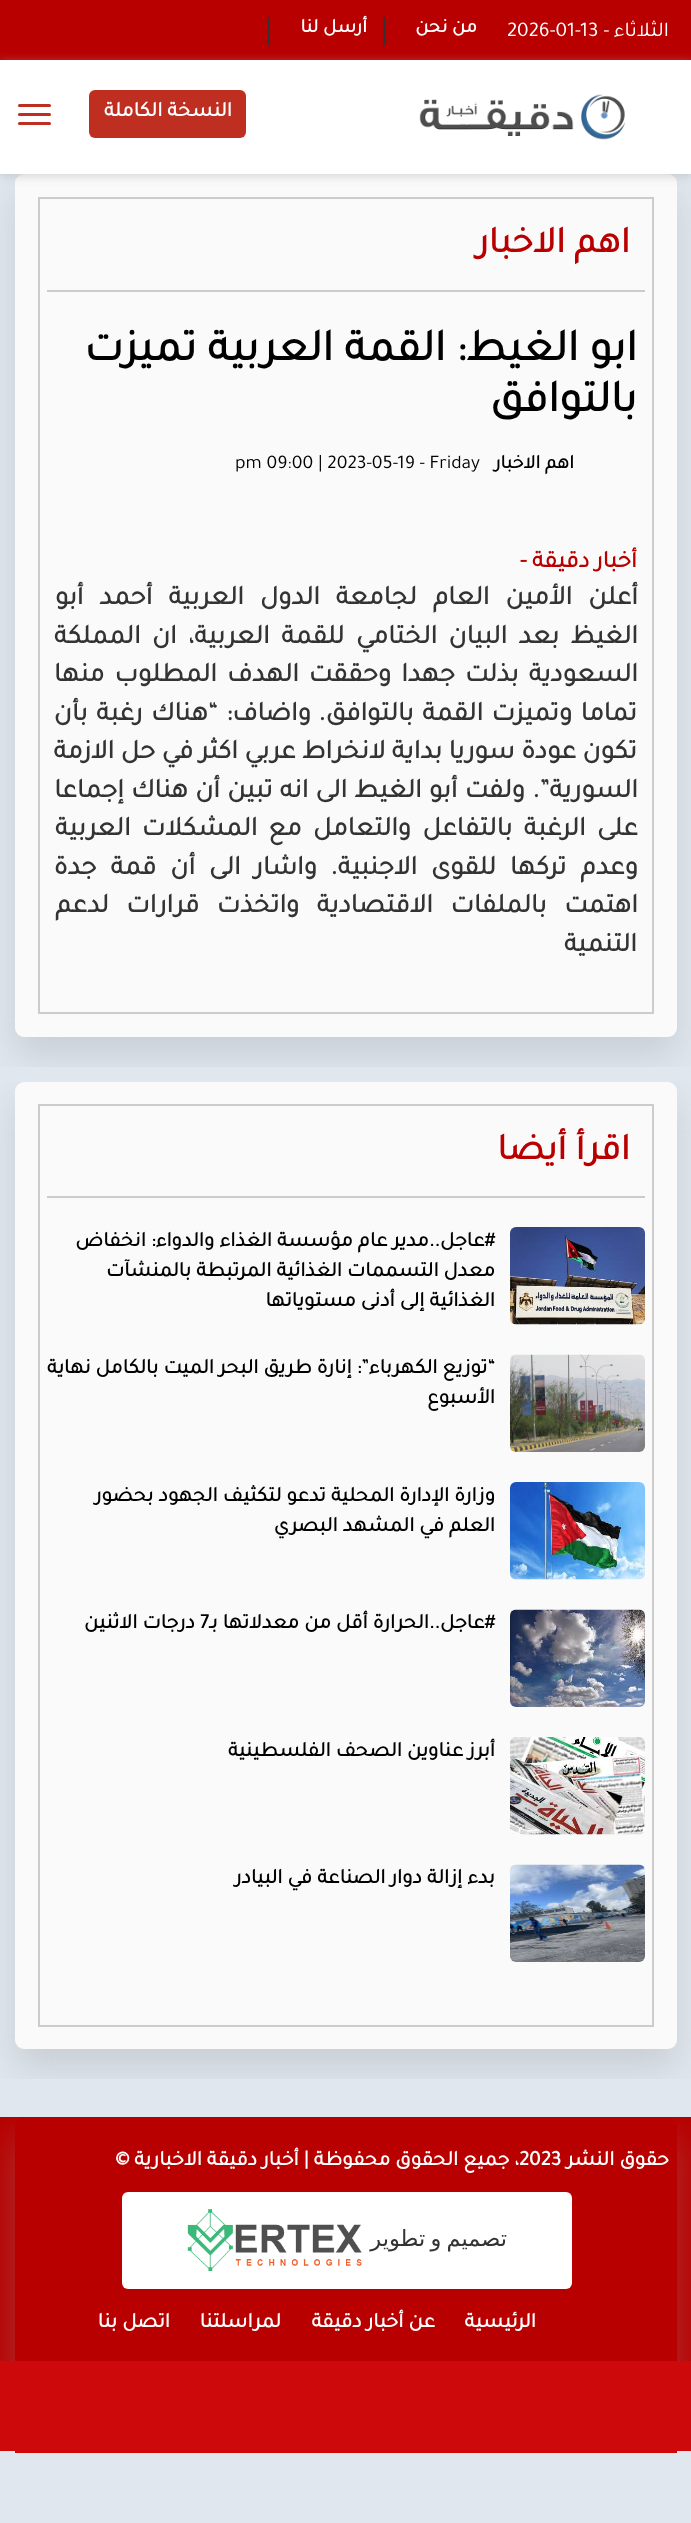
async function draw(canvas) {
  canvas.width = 691;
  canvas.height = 2523;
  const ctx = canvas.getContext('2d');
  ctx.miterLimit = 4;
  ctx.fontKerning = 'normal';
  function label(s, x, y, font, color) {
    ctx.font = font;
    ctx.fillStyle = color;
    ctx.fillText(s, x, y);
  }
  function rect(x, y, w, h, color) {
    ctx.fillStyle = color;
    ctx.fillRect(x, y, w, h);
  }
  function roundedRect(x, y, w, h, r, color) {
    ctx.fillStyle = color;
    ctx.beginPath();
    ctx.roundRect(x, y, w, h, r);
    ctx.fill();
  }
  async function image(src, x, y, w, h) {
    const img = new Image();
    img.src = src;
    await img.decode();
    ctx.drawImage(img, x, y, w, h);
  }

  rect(0, 0, 691, 2523, '#e0e7ee');
  rect(0, 0, 691, 60, '#b80000');
  ctx.direction = 'rtl';
  label('الثلاثاء', 669, 36, '21px Tajawal', '#fff');
  ctx.direction = 'ltr';
  label('2026-01-13 -', 507, 36, '21px Tajawal', '#fff');
  rect(383, 17, 3, 28, '#333');
  ctx.direction = 'rtl';
  label('من نحن', 477, 32, 'bold 19.5px Tajawal', '#fff');
  rect(267, 17, 3, 28, '#333');
  label('أرسل لنا', 367, 32, 'bold 19.5px Tajawal', '#fff');
  ctx.save();
  ctx.beginPath();
  ctx.rect(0, 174, 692, 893);
  ctx.clip();
  ctx.fillStyle = '#999da052';
  ctx.filter = 'blur(18px)';
  ctx.beginPath();
  ctx.roundRect(15, 194, 662, 862, 9);
  ctx.fill();
  ctx.filter = 'none';
  ctx.restore();
  roundedRect(15, 174, 662, 863, 9, '#fafafa');
  ctx.fillStyle = '#ababab80';
  ctx.filter = 'blur(5px)';
  ctx.beginPath();
  ctx.rect(0, 62, 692, 114);
  ctx.fill();
  ctx.filter = 'none';
  rect(0, 60, 691, 114, '#fff');
  await image('assets/img1.png', 419, 94, 207, 46);
  roundedRect(89, 90, 157, 48, 6, '#be2f21');
  label('النسخة الكاملة', 232, 116, 'bold 21px Tajawal', '#fff');
  roundedRect(18, 104, 33, 3, 1.5, '#be2f21');
  roundedRect(18, 113, 33, 3, 1.5, '#be2f21');
  roundedRect(18, 122, 33, 3, 1.5, '#be2f21');
  ctx.strokeStyle = '#ccc';
  ctx.lineWidth = 2;
  ctx.strokeRect(39, 198, 614, 815);
  rect(47, 290, 598, 2, '#ccc');
  label('اهم الاخبار', 630, 252, 'bold 37.5px Tajawal', '#b80000');
  label('ابو الغيط: القمة العربية تميزت', 637, 360, 'bold 45px Tajawal', '#000');
  label('بالتوافق', 637, 411, 'bold 45px Tajawal', '#000');
  label('اهم الاخبار', 574, 468, 'bold 19.5px Tajawal', '#000');
  ctx.direction = 'ltr';
  label('pm 09:00 | 2023-05-19 - Friday', 235, 468, '19.5px Tajawal', '#000');
  ctx.direction = 'rtl';
  label('أخبار دقيقة', 637, 567, 'bold 24px Tajawal', '#b80000');
  ctx.direction = 'ltr';
  label('-', 520, 567, 'bold 24px Tajawal', '#b80000');
  ctx.wordSpacing = '9.5px';
  ctx.direction = 'rtl';
  label('أعلن الأمين العام لجامعة الدول العربية أحمد أبو', 638, 604, 'bold 27px Tajawal', '#333');
  ctx.wordSpacing = '5px';
  label('الغيظ بعد البيان الختامي للقمة العربية، ان المملكة', 638, 643, 'bold 27px Tajawal', '#333');
  ctx.wordSpacing = '3.5px';
  label('السعودية بذلت جهدا وحققت الهدف المطلوب منها', 638, 681, 'bold 27px Tajawal', '#333');
  ctx.wordSpacing = '2px';
  label('تماما وتميزت القمة بالتوافق.', 637, 720, 'bold 27px Tajawal', '#333');
  label('واضاف: “هناك رغبة بأن', 311, 720, 'bold 27px Tajawal', '#333');
  ctx.wordSpacing = '0px';
  label('تكون عودة سوريا بداية لانخراط عربي اكثر في حل الازمة', 637, 758, 'bold 27px Tajawal', '#333');
  label('السورية”.', 638, 797, 'bold 27px Tajawal', '#333');
  ctx.wordSpacing = '0.75px';
  label('ولفت أبو الغيط الى انه تبين أن هناك إجماعا', 525, 797, 'bold 27px Tajawal', '#333');
  ctx.wordSpacing = '4.75px';
  label('على الرغبة بالتفاعل والتعامل مع المشكلات العربية', 638, 835, 'bold 27px Tajawal', '#333');
  ctx.wordSpacing = '7.5px';
  label('وعدم تركها للقوى الاجنبية.', 638, 874, 'bold 27px Tajawal', '#333');
  label('واشار الى أن قمة جدة', 317, 874, 'bold 27px Tajawal', '#333');
  ctx.wordSpacing = '11px';
  label('اهتمت بالملفات الاقتصادية واتخذت قرارات لدعم', 638, 912, 'bold 27px Tajawal', '#333');
  ctx.wordSpacing = '0px';
  label('التنمية', 637, 951, 'bold 27px Tajawal', '#333');
  ctx.save();
  ctx.beginPath();
  ctx.rect(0, 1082, 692, 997);
  ctx.clip();
  ctx.fillStyle = '#999da052';
  ctx.filter = 'blur(18px)';
  ctx.beginPath();
  ctx.roundRect(15, 1101, 662, 968, 9);
  ctx.fill();
  ctx.filter = 'none';
  ctx.restore();
  roundedRect(15, 1082, 662, 967, 9, '#fafafa');
  ctx.strokeRect(39, 1105, 614, 921);
  rect(47, 1196, 598, 2, '#ccc');
  label('اقرأ أيضا', 630, 1159, 'bold 37.5px Tajawal', '#b80000');
  await image('assets/img2.png', 510, 1227, 135, 98);
  label('#عاجل..مدير عام مؤسسة الغذاء والدواء: انخفاض', 495, 1246, 'bold 21px Tajawal', '#000');
  label('معدل التسممات الغذائية المرتبطة بالمنشآت', 495, 1276, 'bold 21px Tajawal', '#000');
  label('الغذائية إلى أدنى مستوياتها', 495, 1306, 'bold 21px Tajawal', '#000');
  await image('assets/img3.png', 510, 1354, 135, 98);
  label('“توزيع الكهرباء”: إنارة طريق البحر الميت بالكامل نهاية', 495, 1373, 'bold 21px Tajawal', '#000');
  label('الأسبوع', 495, 1403, 'bold 21px Tajawal', '#000');
  await image('assets/img4.png', 510, 1482, 135, 98);
  label('وزارة الإدارة المحلية تدعو لتكثيف الجهود بحضور', 495, 1501, 'bold 21px Tajawal', '#000');
  label('العلم في المشهد البصري', 495, 1531, 'bold 21px Tajawal', '#000');
  await image('assets/img5.png', 510, 1609, 135, 98);
  ctx.direction = 'ltr';
  label('7', 200, 1628, 'bold 21px Tajawal', '#000');
  ctx.direction = 'rtl';
  label('#عاجل..الحرارة أقل من معدلاتها بـ', 495, 1628, 'bold 21px Tajawal', '#000');
  label('درجات الاثنين', 195, 1628, 'bold 21px Tajawal', '#000');
  await image('assets/img6.png', 510, 1737, 135, 98);
  label('أبرز عناوين الصحف الفلسطينية', 495, 1756, 'bold 21px Tajawal', '#000');
  await image('assets/img7.png', 510, 1864, 135, 98);
  label('بدء إزالة دوار الصناعة في البيادر', 495, 1883, 'bold 21px Tajawal', '#000');
  rect(0, 2117, 691, 244, '#b80000');
  ctx.save();
  ctx.beginPath();
  ctx.rect(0, 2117, 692, 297);
  ctx.clip();
  ctx.fillStyle = '#999da052';
  ctx.filter = 'blur(18px)';
  ctx.beginPath();
  ctx.roundRect(15, 2136, 662, 267, 9);
  ctx.fill();
  ctx.filter = 'none';
  ctx.restore();
  roundedRect(15, 2117, 662, 267, 9, '#b80000');
  label('حقوق النشر', 669, 2165, 'bold 21px Tajawal', '#fff');
  ctx.direction = 'ltr';
  label('2023', 519, 2165, 'bold 21px Tajawal', '#fff');
  ctx.direction = 'rtl';
  label('، جميع الحقوق محفوظة | أخبار دقيقة', 519, 2165, 'bold 21px Tajawal', '#fff');
  label('الاخبارية', 202, 2165, 'bold 21px Tajawal', '#fff');
  ctx.direction = 'ltr';
  label('©', 115, 2165, 'bold 21px Tajawal', '#fff');
  roundedRect(122, 2192, 450, 97, 6, '#fff');
  ctx.wordSpacing = '-2px';
  ctx.direction = 'rtl';
  label('تصميم و تطوير', 507, 2246, '22.5px DejaVu Sans', '#333');
  await image('assets/img8.png', 187, 2209, 175, 62);
  ctx.wordSpacing = '0px';
  label('الرئيسية', 536, 2327, 'bold 21px Tajawal', '#fff');
  label('عن أخبار دقيقة', 435, 2327, 'bold 21px Tajawal', '#fff');
  label('لمراسلتنا', 281, 2327, 'bold 21px Tajawal', '#fff');
  label('اتصل بنا', 170, 2327, 'bold 21px Tajawal', '#fff');
  rect(0, 2361, 691, 90, '#cd090c');
  rect(15, 2451, 662, 2, '#cd090c');
}

draw(document.querySelector('canvas'));
